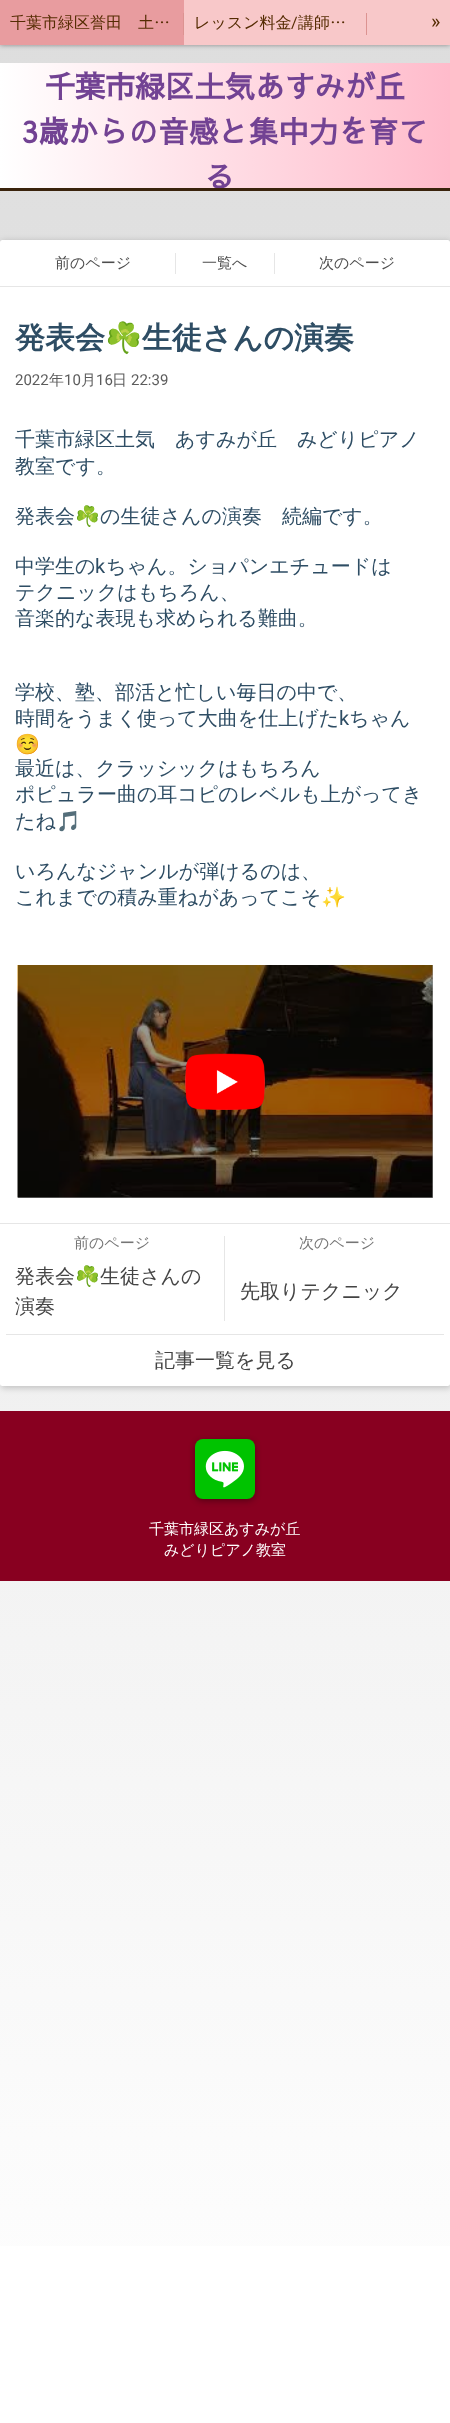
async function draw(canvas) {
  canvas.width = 450;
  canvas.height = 2423;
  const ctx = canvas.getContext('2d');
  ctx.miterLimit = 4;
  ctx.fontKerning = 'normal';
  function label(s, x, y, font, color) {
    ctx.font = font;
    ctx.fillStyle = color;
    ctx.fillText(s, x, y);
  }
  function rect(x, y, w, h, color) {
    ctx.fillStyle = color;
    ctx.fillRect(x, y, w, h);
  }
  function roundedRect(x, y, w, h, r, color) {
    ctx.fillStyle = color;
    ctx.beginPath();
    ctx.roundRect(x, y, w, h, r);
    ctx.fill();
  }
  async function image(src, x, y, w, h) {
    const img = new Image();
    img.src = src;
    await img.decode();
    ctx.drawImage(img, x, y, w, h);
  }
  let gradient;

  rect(0, 0, 450, 2423, '#fff');
  gradient = ctx.createLinearGradient(225, 0, 225, 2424);
  gradient.addColorStop(0, '#ddd');
  gradient.addColorStop(1, '#fff');
  ctx.fillStyle = gradient;
  ctx.fillRect(0, 45, 450, 2201);
  ctx.fillStyle = '#01010166';
  ctx.filter = 'blur(2.5px)';
  ctx.beginPath();
  ctx.rect(0, 0, 450, 45);
  ctx.fill();
  ctx.filter = 'none';
  rect(184, 0, 266, 45, '#f8c8c9');
  rect(0, 0, 184, 45, '#e89c9f');
  rect(183, 13, 1, 22, '#dc9391');
  label('千葉市緑区誉田　土…', 10, 28, '500 16px WenQuanYi Zen Hei', '#552c03');
  rect(366, 13, 1, 22, '#dc9391');
  label('レッスン料金', 194, 28, '500 16px WenQuanYi Zen Hei', '#552c03');
  label('/', 291, 28, '16px Roboto', '#552c03');
  label('講師…', 298, 28, '500 16px WenQuanYi Zen Hei', '#552c03');
  label('»', 431, 28, '20px Roboto', '#552c03');
  rect(0, 188, 450, 3, '#3a230c');
  gradient = ctx.createLinearGradient(0, 153, 450, 152);
  gradient.addColorStop(0, '#fff');
  gradient.addColorStop(1, '#ffbbcb');
  ctx.fillStyle = gradient;
  ctx.fillRect(0, 63, 450, 125);
  label('千葉市緑区土気あすみが丘', 45, 98, 'bold 30px Sawarabi Gothic', '#724293');
  label('3歳からの音感と集中力を育て', 22, 143, 'bold 30px Sawarabi Gothic', '#724293');
  ctx.save();
  ctx.beginPath();
  ctx.rect(0, 63, 450, 125);
  ctx.clip();
  label('る', 205, 188, 'bold 30px Sawarabi Gothic', '#724293');
  ctx.restore();
  ctx.fillStyle = '#00000033';
  ctx.filter = 'blur(3px)';
  ctx.beginPath();
  ctx.roundRect(1, 241, 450, 1147, 2.5);
  ctx.fill();
  ctx.filter = 'none';
  roundedRect(0, 240, 450, 1146, 2.5, '#fff');
  rect(18, 965, 415, 233, '#999');
  rect(0, 286, 450, 1, '#e6e6e6');
  label('前のページ', 55, 268, '500 15px WenQuanYi Zen Hei', '#4d4d4d');
  rect(274, 253, 1, 21, '#e6e6e6');
  rect(175, 253, 1, 21, '#e6e6e6');
  label('一覧へ', 202, 268, '500 15px WenQuanYi Zen Hei', '#4d4d4d');
  label('次のページ', 319, 268, '500 15px WenQuanYi Zen Hei', '#4d4d4d');
  label('発表会', 15, 348, 'bold 30px WenQuanYi Zen Hei', '#2e4d64');
  label('☘️', 105, 348, 'bold 30px Noto Color Emoji', '#2e4d64');
  label('生徒さんの演奏', 142, 348, 'bold 30px WenQuanYi Zen Hei', '#2e4d64');
  label('2022', 15, 385, '15px Roboto', '#5c5c5c');
  label('年', 49, 385, '500 15px WenQuanYi Zen Hei', '#5c5c5c');
  label('10', 64, 385, '15px Roboto', '#5c5c5c');
  label('月', 81, 385, '500 15px WenQuanYi Zen Hei', '#5c5c5c');
  label('16', 96, 385, '15px Roboto', '#5c5c5c');
  label('日', 112, 385, '500 15px WenQuanYi Zen Hei', '#5c5c5c');
  label('22:39', 131, 385, '15px Roboto', '#5c5c5c');
  label('千葉市緑区土気　あすみが丘　みどりピアノ', 15, 446, '500 20px WenQuanYi Zen Hei', '#2e4d64');
  label('教室です。', 15, 473, '500 20px WenQuanYi Zen Hei', '#2e4d64');
  label('発表会', 15, 523, '500 20px WenQuanYi Zen Hei', '#2e4d64');
  label('☘️', 75, 523, '20px Noto Color Emoji', '#2e4d64');
  label('の生徒さんの演奏　続編です。', 100, 523, '500 20px WenQuanYi Zen Hei', '#2e4d64');
  label('中学生の', 15, 573, '500 20px WenQuanYi Zen Hei', '#2e4d64');
  label('k', 95, 573, '20px Roboto', '#2e4d64');
  label('ちゃん。ショパンエチュードは', 106, 573, '500 20px WenQuanYi Zen Hei', '#2e4d64');
  label('テクニックはもちろん、', 15, 599, '500 20px WenQuanYi Zen Hei', '#2e4d64');
  label('音楽的な表現も求められる難曲。', 15, 625, '500 20px WenQuanYi Zen Hei', '#2e4d64');
  label('学校、塾、部活と忙しい毎日の中で、', 15, 699, '500 20px WenQuanYi Zen Hei', '#2e4d64');
  label('時間をうまく使って大曲を仕上げた', 15, 725, '500 20px WenQuanYi Zen Hei', '#2e4d64');
  label('k', 339, 725, '20px Roboto', '#2e4d64');
  label('ちゃん', 349, 725, '500 20px WenQuanYi Zen Hei', '#2e4d64');
  label('☺️', 15, 751, '20px Noto Color Emoji', '#2e4d64');
  label('最近は、クラッシックはもちろん', 15, 775, '500 20px WenQuanYi Zen Hei', '#2e4d64');
  label('ポピュラー曲の耳コピのレベルも上がってき', 15, 801, '500 20px WenQuanYi Zen Hei', '#2e4d64');
  label('たね', 15, 828, '500 20px WenQuanYi Zen Hei', '#2e4d64');
  label('🎵', 56, 828, '20px Noto Color Emoji', '#2e4d64');
  label('いろんなジャンルが弾けるのは、', 15, 878, '500 20px WenQuanYi Zen Hei', '#2e4d64');
  label('これまでの積み重ねがあってこそ', 15, 904, '500 20px WenQuanYi Zen Hei', '#2e4d64');
  label('✨', 321, 904, '20px Noto Color Emoji', '#2e4d64');
  await image('assets/img1.png', 17, 965, 416, 233);
  await image('assets/img2.png', 185, 1053, 80, 57);
  rect(0, 1223, 450, 1, '#e6e6e6');
  label('前のページ', 74, 1248, '500 15px WenQuanYi Zen Hei', '#757575');
  rect(224, 1236, 1, 85, '#e6e6e6');
  label('発表会', 15, 1283, '500 20px WenQuanYi Zen Hei', '#444');
  label('☘️', 75, 1283, '20px Noto Color Emoji', '#444');
  label('生徒さんの', 100, 1283, '500 20px WenQuanYi Zen Hei', '#444');
  label('演奏', 15, 1313, '500 20px WenQuanYi Zen Hei', '#444');
  label('次のページ', 299, 1248, '500 15px WenQuanYi Zen Hei', '#757575');
  label('先取りテクニック', 240, 1298, '500 20px WenQuanYi Zen Hei', '#444');
  rect(6, 1334, 438, 1, '#e6e6e6');
  label('記事一覧を見る', 155, 1367, '500 20px WenQuanYi Zen Hei', '#444');
  rect(0, 1411, 450, 170, '#880020');
  ctx.fillStyle = '#00000059';
  ctx.filter = 'blur(3px)';
  ctx.beginPath();
  ctx.roundRect(195, 1441, 60, 60, 8);
  ctx.fill();
  ctx.filter = 'none';
  roundedRect(195, 1439, 60, 60, 8, '#00c300');
  roundedRect(201, 1445, 48, 48, 13, '#fff');
  await image('assets/img3.png', 201, 1445, 48, 48);
  label('千葉市緑区あすみが丘', 149, 1534, '500 15px WenQuanYi Zen Hei', '#fff');
  label('みどりピアノ教室', 164, 1555, '500 15px WenQuanYi Zen Hei', '#fff');
}

draw(document.querySelector('canvas'));
